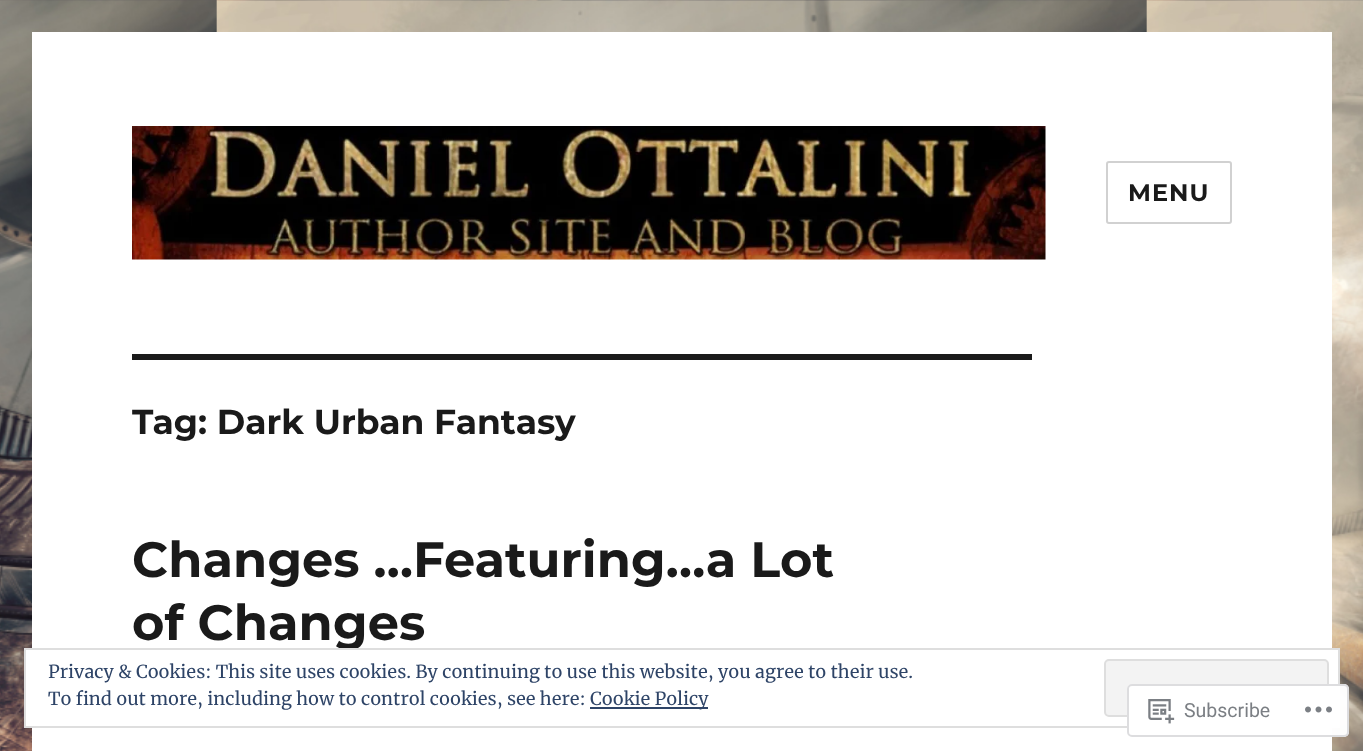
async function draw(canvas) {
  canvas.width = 1363;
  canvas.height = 751;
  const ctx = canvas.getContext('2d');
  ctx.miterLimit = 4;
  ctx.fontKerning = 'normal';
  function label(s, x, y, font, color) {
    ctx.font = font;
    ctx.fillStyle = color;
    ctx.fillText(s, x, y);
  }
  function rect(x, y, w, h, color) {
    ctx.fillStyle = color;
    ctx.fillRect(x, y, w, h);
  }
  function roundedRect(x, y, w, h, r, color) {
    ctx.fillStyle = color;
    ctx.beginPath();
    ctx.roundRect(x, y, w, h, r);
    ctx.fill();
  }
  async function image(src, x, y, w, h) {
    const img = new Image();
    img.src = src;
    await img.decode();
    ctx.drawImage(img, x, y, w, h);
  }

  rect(0, 0, 1363, 751, '#fff');
  await image('assets/img1.png', 0, 0, 1363, 751);
  rect(32, 32, 1300, 719, '#fff');
  await image('assets/img2.png', 132, 126, 914, 134);
  ctx.beginPath();
  ctx.roundRect(1107, 162, 124, 61, 2);
  ctx.strokeStyle = '#d1d1d1';
  ctx.lineWidth = 2;
  ctx.stroke();
  ctx.letterSpacing = '1px';
  label('MENU', 1128, 201, '100 24px Montserrat', '#1a1a1a');
  rect(132, 354, 900, 6, '#1a1a1a');
  ctx.letterSpacing = '0px';
  label('Tag: Dark Urban Fantasy', 132, 434, '100 34.5px Montserrat', '#1a1a1a');
  label('Changes …Featuring…a Lot', 132, 577, '100 49.5px Montserrat', '#1a1a1a');
  label('of Changes', 132, 640, '100 49.5px Montserrat', '#1a1a1a');
  ctx.fillStyle = '#fff';
  ctx.beginPath();
  ctx.rect(25, 649, 1314, 78);
  ctx.fill();
  ctx.strokeStyle = '#dedede';
  ctx.stroke();
  label('Privacy & Cookies: This site uses cookies. By continuing to use this website, you agree to their use.', 48, 678, '18px Merriweather', '#2e4467');
  ctx.fillStyle = '#f3f3f3';
  ctx.beginPath();
  ctx.roundRect(1105, 660, 223, 56, 4);
  ctx.fill();
  ctx.stroke();
  label('To find out more, including how to control cookies, see here:', 48, 705, '18px Merriweather', '#2e4467');
  rect(590, 707, 118, 2, '#2e4467');
  label('Cookie Policy', 590, 705, '18px Merriweather', '#2e4467');
  roundedRect(1127, 684, 222, 53, 5, '#fffffffa');
  ctx.beginPath();
  ctx.roundRect(1128, 685, 220, 51, 4);
  ctx.strokeStyle = '#dcdcdefa';
  ctx.stroke();
  await image('assets/img3.png', 1148, 699, 27, 25);
  label('Subscribe', 1184, 717, '19.5px Roboto', '#7b7f84');
  await image('assets/img4.png', 1305, 706, 27, 7);
}

draw(document.querySelector('canvas'));
